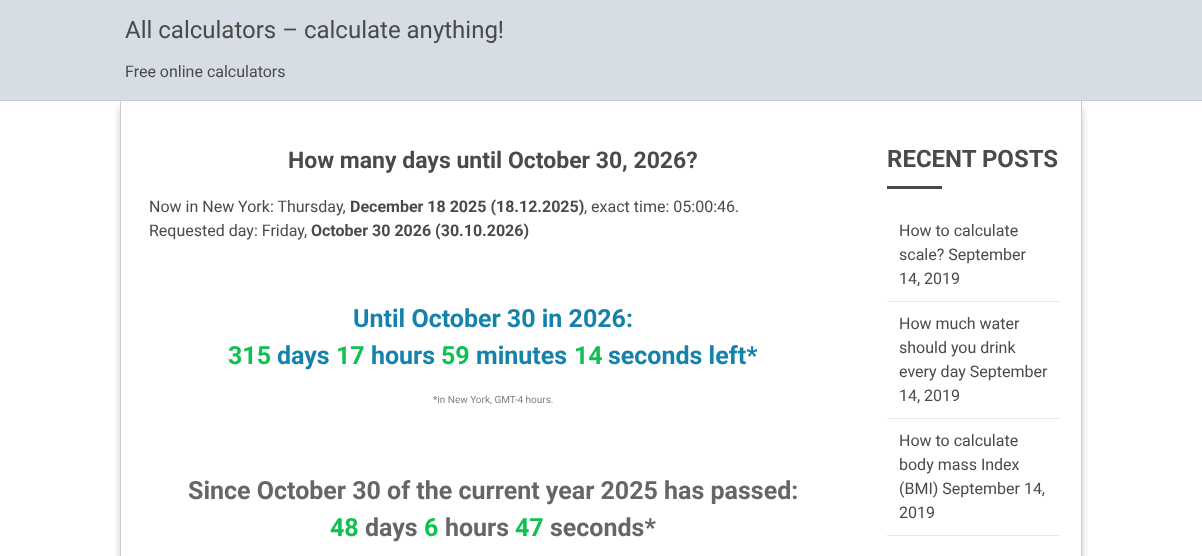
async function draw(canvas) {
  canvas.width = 1202;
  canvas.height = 556;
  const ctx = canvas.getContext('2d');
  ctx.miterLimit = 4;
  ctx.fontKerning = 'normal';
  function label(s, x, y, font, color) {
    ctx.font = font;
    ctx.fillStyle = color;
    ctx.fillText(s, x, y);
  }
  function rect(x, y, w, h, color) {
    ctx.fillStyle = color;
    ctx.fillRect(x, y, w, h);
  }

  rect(0, 0, 1202, 556, '#fff');
  rect(0, 0, 1202, 100, '#d7dde4');
  rect(0, 100, 1202, 1, '#ccc');
  label('All calculators – calculate anything!', 125, 38, '24px Roboto', '#4a4a4a');
  label('Free online calculators', 125, 77, '16px Roboto', '#4a4a4a');
  ctx.save();
  ctx.beginPath();
  ctx.rect(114, 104, 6, 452);
  ctx.clip();
  ctx.fillStyle = '#01010140';
  ctx.filter = 'blur(5px)';
  ctx.beginPath();
  ctx.rect(121, 108, 948, 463);
  ctx.fill();
  ctx.filter = 'none';
  ctx.restore();
  ctx.save();
  ctx.beginPath();
  ctx.rect(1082, 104, 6, 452);
  ctx.clip();
  ctx.fillStyle = '#01010140';
  ctx.filter = 'blur(5px)';
  ctx.beginPath();
  ctx.rect(133, 108, 948, 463);
  ctx.fill();
  ctx.filter = 'none';
  ctx.restore();
  rect(1081, 101, 1, 455, '#ccc');
  rect(120, 101, 1, 455, '#ccc');
  label('How many days until October 30, 2026?', 288, 168, 'bold 23px Roboto', '#4a4a4a');
  label('Now in New York: Thursday,', 149, 212, '16px Roboto', '#4a4a4a');
  label('December 18 2025 (18.12.2025)', 350, 212, 'bold 16px Roboto', '#4a4a4a');
  label(', exact time: 05:00:46.', 584, 212, '16px Roboto', '#4a4a4a');
  label('Requested day: Friday,', 149, 236, '16px Roboto', '#4a4a4a');
  label('October 30 2026 (30.10.2026)', 311, 236, 'bold 16px Roboto', '#4a4a4a');
  label('Until October 30 in 2026:', 353, 327, 'bold 25px Roboto', '#1582ab');
  label('315', 228, 364, 'bold 25px Roboto', '#10c152');
  label('days', 277, 364, 'bold 25px Roboto', '#1582ab');
  label('17', 336, 364, 'bold 25px Roboto', '#10c152');
  label('hours', 371, 364, 'bold 25px Roboto', '#1582ab');
  label('59', 441, 364, 'bold 25px Roboto', '#10c152');
  label('minutes', 476, 364, 'bold 25px Roboto', '#1582ab');
  label('14', 574, 364, 'bold 25px Roboto', '#10c152');
  label('seconds left*', 608, 364, 'bold 25px Roboto', '#1582ab');
  label('*in New York, GMT-4 hours.', 433, 403, '10px Roboto', '#808080');
  label('Since October 30 of the current year 2025 has passed:', 188, 499, 'bold 25px Roboto', '#666');
  label('48', 330, 536, 'bold 25px Roboto', '#10c152');
  label('days', 365, 536, 'bold 25px Roboto', '#666');
  label('6', 424, 536, 'bold 25px Roboto', '#10c152');
  label('hours', 445, 536, 'bold 25px Roboto', '#666');
  label('47', 515, 536, 'bold 25px Roboto', '#10c152');
  label('seconds*', 550, 536, 'bold 25px Roboto', '#666');
  label('RECENT POSTS', 887, 167, 'bold 24px Roboto', '#4a4a4a');
  rect(887, 186, 55, 3, '#4a4a4a');
  label('How to calculate', 899, 236, '16px Roboto', '#4a4a4a');
  label('scale? September', 899, 260, '16px Roboto', '#4a4a4a');
  label('14, 2019', 899, 284, '16px Roboto', '#4a4a4a');
  rect(887, 301, 172, 1, '#e6e6e6');
  label('How much water', 899, 329, '16px Roboto', '#4a4a4a');
  label('should you drink', 899, 353, '16px Roboto', '#4a4a4a');
  label('every day September', 899, 377, '16px Roboto', '#4a4a4a');
  label('14, 2019', 899, 401, '16px Roboto', '#4a4a4a');
  rect(887, 418, 172, 1, '#e6e6e6');
  label('How to calculate', 899, 446, '16px Roboto', '#4a4a4a');
  label('body mass Index', 899, 470, '16px Roboto', '#4a4a4a');
  label('(BMI) September 14,', 899, 494, '16px Roboto', '#4a4a4a');
  label('2019', 899, 518, '16px Roboto', '#4a4a4a');
  rect(887, 535, 172, 1, '#e6e6e6');
}

draw(document.querySelector('canvas'));
